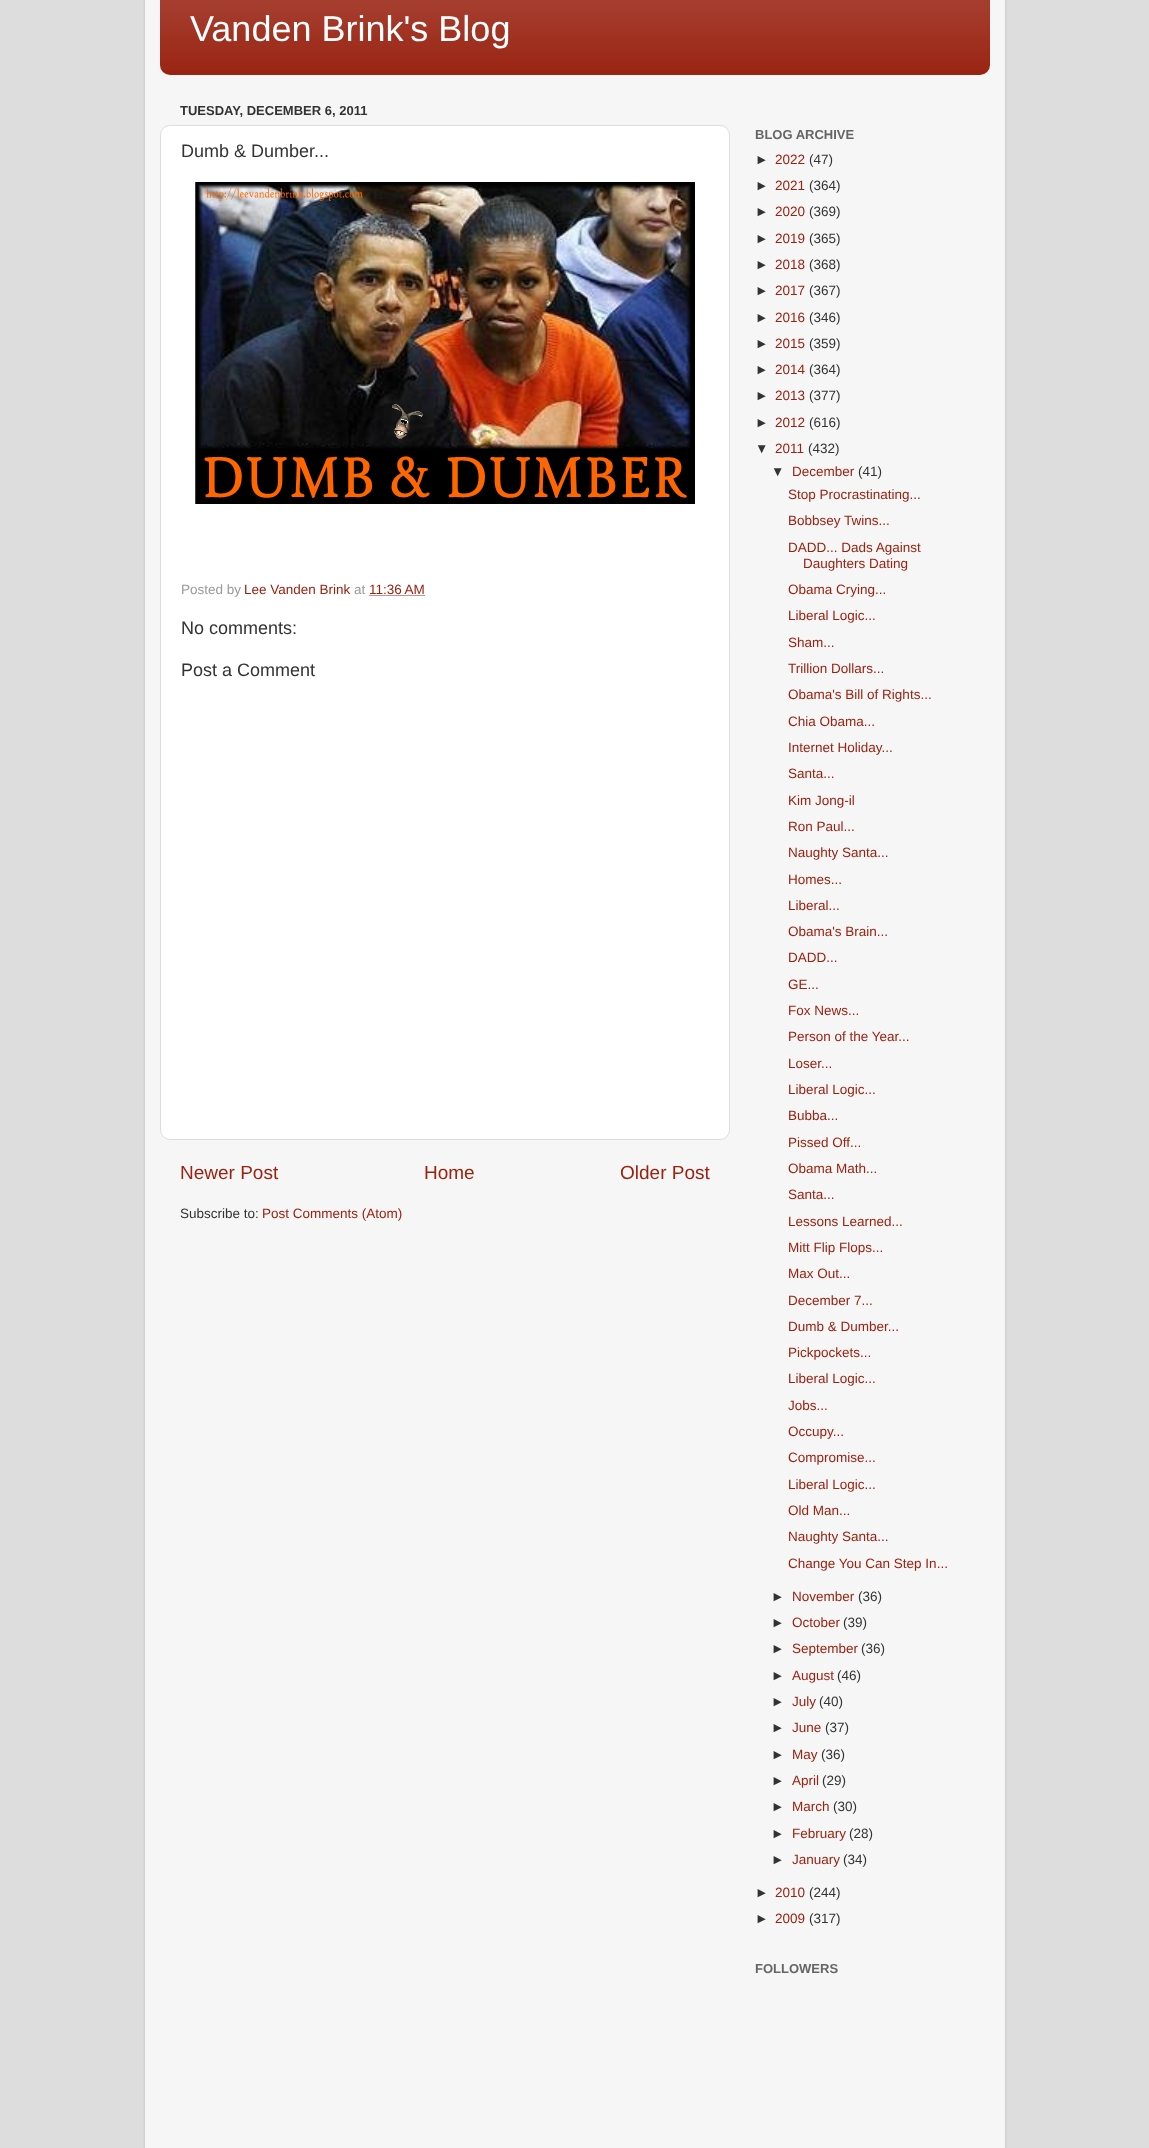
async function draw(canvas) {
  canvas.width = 1149;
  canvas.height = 2148;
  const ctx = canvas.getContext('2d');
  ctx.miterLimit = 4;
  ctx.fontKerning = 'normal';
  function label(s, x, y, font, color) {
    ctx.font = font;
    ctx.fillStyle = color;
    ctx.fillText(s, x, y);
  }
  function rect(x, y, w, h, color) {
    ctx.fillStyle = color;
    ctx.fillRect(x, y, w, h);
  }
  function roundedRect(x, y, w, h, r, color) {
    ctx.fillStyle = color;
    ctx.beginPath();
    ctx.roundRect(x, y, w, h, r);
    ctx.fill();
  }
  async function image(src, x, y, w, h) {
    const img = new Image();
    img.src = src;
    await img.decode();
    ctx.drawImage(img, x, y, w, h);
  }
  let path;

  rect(0, 0, 1149, 2148, '#ddd');
  ctx.fillStyle = '#00000026';
  ctx.filter = 'blur(1.5px)';
  ctx.beginPath();
  ctx.roundRect(145, -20, 860, 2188, 15);
  ctx.fill();
  ctx.filter = 'none';
  rect(145, 0, 860, 2148, '#f6f6f6');
  roundedRect(160, -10, 830, 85, 10, '#921');
  await image('assets/img1.png', 160, 0, 830, 70);
  label('Vanden Brink\'s Blog', 190, 41, '36px Liberation Sans', '#fff');
  label('TUESDAY, DECEMBER 6, 2011', 180, 115, 'bold 13px Liberation Sans', '#333');
  ctx.fillStyle = '#fff';
  ctx.beginPath();
  ctx.roundRect(160.5, 125.5, 569, 1014, 9.5);
  ctx.fill();
  ctx.strokeStyle = '#ddd';
  ctx.stroke();
  label('Dumb & Dumber...', 181, 157, '18px Liberation Sans', '#333');
  await image('assets/img2.png', 195, 182, 500, 322);
  label('Posted by', 181, 594, '13.5px Liberation Sans', '#999');
  label('Lee Vanden Brink', 244, 594, '13.5px Liberation Sans', '#921');
  label('at', 354, 594, '13.5px Liberation Sans', '#999');
  label('11:36 AM', 369, 594, '13.5px Liberation Sans', '#921');
  path = new Path2D('M369.5 595.5H425');
  ctx.strokeStyle = '#921';
  ctx.setLineDash([1, 1]);
  ctx.stroke(path);
  label('No comments:', 181, 634, '18px Liberation Sans', '#333');
  label('Post a Comment', 181, 676, '18px Liberation Sans', '#333');
  label('Newer Post', 180, 1179, '19px Liberation Sans', '#921');
  label('Home', 424, 1179, '19px Liberation Sans', '#921');
  label('Older Post', 620, 1179, '19px Liberation Sans', '#921');
  label('Subscribe to:', 180, 1218, '13.5px Liberation Sans', '#333');
  label('Post Comments (Atom)', 262, 1218, '13.5px Liberation Sans', '#921');
  label('BLOG ARCHIVE', 755, 139, 'bold 13px Liberation Sans', '#666');
  label('►', 755, 164, '13.5px Liberation Sans', '#333');
  label('2022', 775, 164, '13.5px Liberation Sans', '#921');
  label('(47)', 809, 164, '13.5px Liberation Sans', '#333');
  label('►', 755, 190, '13.5px Liberation Sans', '#333');
  label('2021', 775, 190, '13.5px Liberation Sans', '#921');
  label('(364)', 809, 190, '13.5px Liberation Sans', '#333');
  label('►', 755, 216, '13.5px Liberation Sans', '#333');
  label('2020', 775, 216, '13.5px Liberation Sans', '#921');
  label('(369)', 809, 216, '13.5px Liberation Sans', '#333');
  label('►', 755, 243, '13.5px Liberation Sans', '#333');
  label('2019', 775, 243, '13.5px Liberation Sans', '#921');
  label('(365)', 809, 243, '13.5px Liberation Sans', '#333');
  label('►', 755, 269, '13.5px Liberation Sans', '#333');
  label('2018', 775, 269, '13.5px Liberation Sans', '#921');
  label('(368)', 809, 269, '13.5px Liberation Sans', '#333');
  label('►', 755, 295, '13.5px Liberation Sans', '#333');
  label('2017', 775, 295, '13.5px Liberation Sans', '#921');
  label('(367)', 809, 295, '13.5px Liberation Sans', '#333');
  label('►', 755, 322, '13.5px Liberation Sans', '#333');
  label('2016', 775, 322, '13.5px Liberation Sans', '#921');
  label('(346)', 809, 322, '13.5px Liberation Sans', '#333');
  label('►', 755, 348, '13.5px Liberation Sans', '#333');
  label('2015', 775, 348, '13.5px Liberation Sans', '#921');
  label('(359)', 809, 348, '13.5px Liberation Sans', '#333');
  label('►', 755, 374, '13.5px Liberation Sans', '#333');
  label('2014', 775, 374, '13.5px Liberation Sans', '#921');
  label('(364)', 809, 374, '13.5px Liberation Sans', '#333');
  label('►', 755, 400, '13.5px Liberation Sans', '#333');
  label('2013', 775, 400, '13.5px Liberation Sans', '#921');
  label('(377)', 809, 400, '13.5px Liberation Sans', '#333');
  label('►', 755, 427, '13.5px Liberation Sans', '#333');
  label('2012', 775, 427, '13.5px Liberation Sans', '#921');
  label('(616)', 809, 427, '13.5px Liberation Sans', '#333');
  label('▼', 755, 453, '13.5px Liberation Sans', '#333');
  label('2011', 775, 453, '13.5px Liberation Sans', '#921');
  label('(432)', 808, 453, '13.5px Liberation Sans', '#333');
  label('▼', 771, 476, '13.5px Liberation Sans', '#333');
  label('December', 792, 476, '13.5px Liberation Sans', '#921');
  label('(41)', 858, 476, '13.5px Liberation Sans', '#333');
  label('Stop Procrastinating...', 788, 499, '13.5px Liberation Sans', '#921');
  label('Bobbsey Twins...', 788, 525, '13.5px Liberation Sans', '#921');
  label('DADD... Dads Against', 788, 552, '13.5px Liberation Sans', '#921');
  label('Daughters Dating', 803, 568, '13.5px Liberation Sans', '#921');
  label('Obama Crying...', 788, 594, '13.5px Liberation Sans', '#921');
  label('Liberal Logic...', 788, 620, '13.5px Liberation Sans', '#921');
  label('Sham...', 788, 647, '13.5px Liberation Sans', '#921');
  label('Trillion Dollars...', 788, 673, '13.5px Liberation Sans', '#921');
  label('Obama\'s Bill of Rights...', 788, 699, '13.5px Liberation Sans', '#921');
  label('Chia Obama...', 788, 726, '13.5px Liberation Sans', '#921');
  label('Internet Holiday...', 788, 752, '13.5px Liberation Sans', '#921');
  label('Santa...', 788, 778, '13.5px Liberation Sans', '#921');
  label('Kim Jong-il', 788, 805, '13.5px Liberation Sans', '#921');
  label('Ron Paul...', 788, 831, '13.5px Liberation Sans', '#921');
  label('Naughty Santa...', 788, 857, '13.5px Liberation Sans', '#921');
  label('Homes...', 788, 884, '13.5px Liberation Sans', '#921');
  label('Liberal...', 788, 910, '13.5px Liberation Sans', '#921');
  label('Obama\'s Brain...', 788, 936, '13.5px Liberation Sans', '#921');
  label('DADD...', 788, 962, '13.5px Liberation Sans', '#921');
  label('GE...', 788, 989, '13.5px Liberation Sans', '#921');
  label('Fox News...', 788, 1015, '13.5px Liberation Sans', '#921');
  label('Person of the Year...', 788, 1041, '13.5px Liberation Sans', '#921');
  label('Loser...', 788, 1068, '13.5px Liberation Sans', '#921');
  label('Liberal Logic...', 788, 1094, '13.5px Liberation Sans', '#921');
  label('Bubba...', 788, 1120, '13.5px Liberation Sans', '#921');
  label('Pissed Off...', 788, 1147, '13.5px Liberation Sans', '#921');
  label('Obama Math...', 788, 1173, '13.5px Liberation Sans', '#921');
  label('Santa...', 788, 1199, '13.5px Liberation Sans', '#921');
  label('Lessons Learned...', 788, 1226, '13.5px Liberation Sans', '#921');
  label('Mitt Flip Flops...', 788, 1252, '13.5px Liberation Sans', '#921');
  label('Max Out...', 788, 1278, '13.5px Liberation Sans', '#921');
  label('December 7...', 788, 1305, '13.5px Liberation Sans', '#921');
  label('Dumb & Dumber...', 788, 1331, '13.5px Liberation Sans', '#921');
  label('Pickpockets...', 788, 1357, '13.5px Liberation Sans', '#921');
  label('Liberal Logic...', 788, 1383, '13.5px Liberation Sans', '#921');
  label('Jobs...', 788, 1410, '13.5px Liberation Sans', '#921');
  label('Occupy...', 788, 1436, '13.5px Liberation Sans', '#921');
  label('Compromise...', 788, 1462, '13.5px Liberation Sans', '#921');
  label('Liberal Logic...', 788, 1489, '13.5px Liberation Sans', '#921');
  label('Old Man...', 788, 1515, '13.5px Liberation Sans', '#921');
  label('Naughty Santa...', 788, 1541, '13.5px Liberation Sans', '#921');
  label('Change You Can Step In...', 788, 1568, '13.5px Liberation Sans', '#921');
  label('►', 771, 1601, '13.5px Liberation Sans', '#333');
  label('November', 792, 1601, '13.5px Liberation Sans', '#921');
  label('(36)', 858, 1601, '13.5px Liberation Sans', '#333');
  label('►', 771, 1627, '13.5px Liberation Sans', '#333');
  label('October', 792, 1627, '13.5px Liberation Sans', '#921');
  label('(39)', 843, 1627, '13.5px Liberation Sans', '#333');
  label('►', 771, 1653, '13.5px Liberation Sans', '#333');
  label('September', 792, 1653, '13.5px Liberation Sans', '#921');
  label('(36)', 861, 1653, '13.5px Liberation Sans', '#333');
  label('►', 771, 1680, '13.5px Liberation Sans', '#333');
  label('August', 792, 1680, '13.5px Liberation Sans', '#921');
  label('(46)', 837, 1680, '13.5px Liberation Sans', '#333');
  label('►', 771, 1706, '13.5px Liberation Sans', '#333');
  label('July', 792, 1706, '13.5px Liberation Sans', '#921');
  label('(40)', 819, 1706, '13.5px Liberation Sans', '#333');
  label('►', 771, 1732, '13.5px Liberation Sans', '#333');
  label('June', 792, 1732, '13.5px Liberation Sans', '#921');
  label('(37)', 825, 1732, '13.5px Liberation Sans', '#333');
  label('►', 771, 1759, '13.5px Liberation Sans', '#333');
  label('May', 792, 1759, '13.5px Liberation Sans', '#921');
  label('(36)', 821, 1759, '13.5px Liberation Sans', '#333');
  label('►', 771, 1785, '13.5px Liberation Sans', '#333');
  label('April', 792, 1785, '13.5px Liberation Sans', '#921');
  label('(29)', 822, 1785, '13.5px Liberation Sans', '#333');
  label('►', 771, 1811, '13.5px Liberation Sans', '#333');
  label('March', 792, 1811, '13.5px Liberation Sans', '#921');
  label('(30)', 833, 1811, '13.5px Liberation Sans', '#333');
  label('►', 771, 1838, '13.5px Liberation Sans', '#333');
  label('February', 792, 1838, '13.5px Liberation Sans', '#921');
  label('(28)', 849, 1838, '13.5px Liberation Sans', '#333');
  label('►', 771, 1864, '13.5px Liberation Sans', '#333');
  label('January', 792, 1864, '13.5px Liberation Sans', '#921');
  label('(34)', 843, 1864, '13.5px Liberation Sans', '#333');
  label('►', 755, 1897, '13.5px Liberation Sans', '#333');
  label('2010', 775, 1897, '13.5px Liberation Sans', '#921');
  label('(244)', 809, 1897, '13.5px Liberation Sans', '#333');
  label('►', 755, 1923, '13.5px Liberation Sans', '#333');
  label('2009', 775, 1923, '13.5px Liberation Sans', '#921');
  label('(317)', 809, 1923, '13.5px Liberation Sans', '#333');
  label('FOLLOWERS', 755, 1973, 'bold 13px Liberation Sans', '#666');
}

draw(document.querySelector('canvas'));
